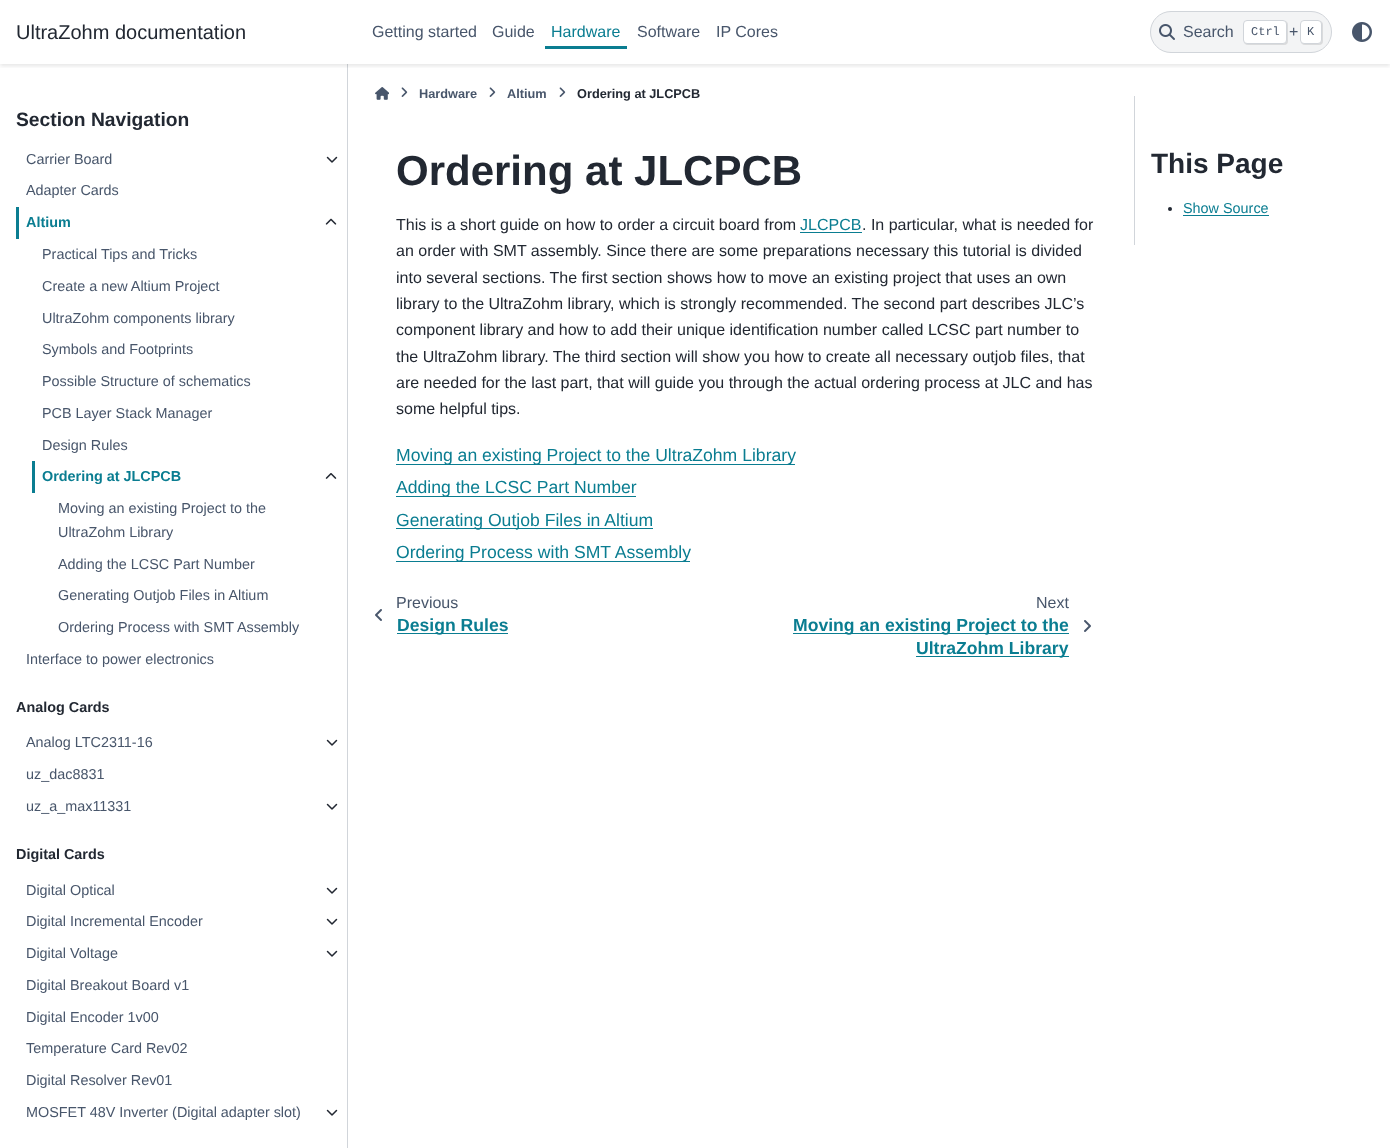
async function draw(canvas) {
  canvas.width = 1390;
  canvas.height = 1148;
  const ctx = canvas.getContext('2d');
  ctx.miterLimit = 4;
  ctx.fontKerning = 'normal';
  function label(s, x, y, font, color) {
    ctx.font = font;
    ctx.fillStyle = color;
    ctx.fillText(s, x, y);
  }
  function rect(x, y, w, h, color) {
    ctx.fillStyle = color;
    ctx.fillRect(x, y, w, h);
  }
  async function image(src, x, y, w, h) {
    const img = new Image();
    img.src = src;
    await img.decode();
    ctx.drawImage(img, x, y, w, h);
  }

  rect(0, 0, 1390, 1148, '#fff');
  rect(347, 64, 1, 1084, '#d1d5da');
  ctx.save();
  ctx.beginPath();
  ctx.rect(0, 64, 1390, 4);
  ctx.clip();
  ctx.fillStyle = '#0000001a';
  ctx.filter = 'blur(2px)';
  ctx.beginPath();
  ctx.rect(0, 2, 1390, 64);
  ctx.fill();
  ctx.filter = 'none';
  ctx.restore();
  label('UltraZohm documentation', 16, 39, '20px Liberation Sans', '#222832');
  label('Getting started', 372, 37, '16px Liberation Sans', '#48566b');
  label('Guide', 492, 37, '16px Liberation Sans', '#48566b');
  label('Hardware', 551, 37, '16px Liberation Sans', '#0a7d91');
  rect(545, 46, 82, 3, '#0a7d91');
  label('Software', 637, 37, '16px Liberation Sans', '#48566b');
  label('IP Cores', 716, 37, '16px Liberation Sans', '#48566b');
  ctx.fillStyle = '#f3f4f5';
  ctx.beginPath();
  ctx.roundRect(1150.5, 11.5, 181, 41, 20.5);
  ctx.fill();
  ctx.strokeStyle = '#d1d5da';
  ctx.stroke();
  await image('assets/img1.png', 1159, 24, 16, 16);
  label('Search', 1183, 37, '16px Liberation Sans', '#48566b');
  ctx.fillStyle = '#0000001a';
  ctx.filter = 'blur(0.5px)';
  ctx.beginPath();
  ctx.roundRect(1244, 21, 44, 24, 4);
  ctx.fill();
  ctx.filter = 'none';
  ctx.fillStyle = '#fff';
  ctx.beginPath();
  ctx.roundRect(1243.5, 20.5, 43, 23, 3.5);
  ctx.fill();
  ctx.stroke();
  label('Ctrl', 1251, 35, '12px Liberation Mono', '#48566b');
  label('+', 1289, 37, '16px Liberation Sans', '#48566b');
  ctx.fillStyle = '#0000001a';
  ctx.filter = 'blur(0.5px)';
  ctx.beginPath();
  ctx.roundRect(1301, 21, 22, 24, 4);
  ctx.fill();
  ctx.filter = 'none';
  ctx.fillStyle = '#fff';
  ctx.beginPath();
  ctx.roundRect(1300.5, 20.5, 21, 23, 3.5);
  ctx.fill();
  ctx.stroke();
  label('K', 1307, 35, '12px Liberation Mono', '#48566b');
  await image('assets/img2.png', 1352, 22, 20, 20);
  label('Section Navigation', 16, 126, 'bold 19.25px Liberation Sans', '#222832');
  label('Carrier Board', 26, 164, '14.4px Liberation Sans', '#48566b');
  await image('assets/img3.png', 326, 156, 12, 7);
  label('Adapter Cards', 26, 195, '14.4px Liberation Sans', '#48566b');
  rect(16, 207, 3, 32, '#0a7d91');
  label('Altium', 26, 227, 'bold 14.4px Liberation Sans', '#0a7d91');
  await image('assets/img4.png', 325, 218, 12, 7);
  label('Practical Tips and Tricks', 42, 259, '14.4px Liberation Sans', '#48566b');
  label('Create a new Altium Project', 42, 291, '14.4px Liberation Sans', '#48566b');
  label('UltraZohm components library', 42, 323, '14.4px Liberation Sans', '#48566b');
  label('Symbols and Footprints', 42, 354, '14.4px Liberation Sans', '#48566b');
  label('Possible Structure of schematics', 42, 386, '14.4px Liberation Sans', '#48566b');
  label('PCB Layer Stack Manager', 42, 418, '14.4px Liberation Sans', '#48566b');
  label('Design Rules', 42, 450, '14.4px Liberation Sans', '#48566b');
  rect(32, 461, 3, 32, '#0a7d91');
  label('Ordering at JLCPCB', 42, 481, 'bold 14.4px Liberation Sans', '#0a7d91');
  await image('assets/img5.png', 325, 473, 12, 6);
  label('Moving an existing Project to the', 58, 513, '14.4px Liberation Sans', '#48566b');
  label('UltraZohm Library', 58, 537, '14.4px Liberation Sans', '#48566b');
  label('Adding the LCSC Part Number', 58, 569, '14.4px Liberation Sans', '#48566b');
  label('Generating Outjob Files in Altium', 58, 600, '14.4px Liberation Sans', '#48566b');
  label('Ordering Process with SMT Assembly', 58, 632, '14.4px Liberation Sans', '#48566b');
  label('Interface to power electronics', 26, 664, '14.4px Liberation Sans', '#48566b');
  label('Analog Cards', 16, 712, 'bold 14.4px Liberation Sans', '#222832');
  label('Analog LTC2311-16', 26, 747, '14.4px Liberation Sans', '#48566b');
  await image('assets/img3.png', 326, 739, 12, 7);
  label('uz_dac8831', 26, 779, '14.4px Liberation Sans', '#48566b');
  label('uz_a_max11331', 26, 811, '14.4px Liberation Sans', '#48566b');
  await image('assets/img3.png', 326, 803, 12, 7);
  label('Digital Cards', 16, 859, 'bold 14.4px Liberation Sans', '#222832');
  label('Digital Optical', 26, 895, '14.4px Liberation Sans', '#48566b');
  await image('assets/img3.png', 326, 887, 12, 7);
  label('Digital Incremental Encoder', 26, 926, '14.4px Liberation Sans', '#48566b');
  await image('assets/img3.png', 326, 918, 12, 7);
  label('Digital Voltage', 26, 958, '14.4px Liberation Sans', '#48566b');
  await image('assets/img3.png', 326, 950, 12, 7);
  label('Digital Breakout Board v1', 26, 990, '14.4px Liberation Sans', '#48566b');
  label('Digital Encoder 1v00', 26, 1022, '14.4px Liberation Sans', '#48566b');
  label('Temperature Card Rev02', 26, 1053, '14.4px Liberation Sans', '#48566b');
  label('Digital Resolver Rev01', 26, 1085, '14.4px Liberation Sans', '#48566b');
  label('MOSFET 48V Inverter (Digital adapter slot)', 26, 1117, '14.4px Liberation Sans', '#48566b');
  await image('assets/img3.png', 326, 1109, 12, 7);
  await image('assets/img6.png', 375, 87, 14, 13);
  await image('assets/img7.png', 401, 87, 7, 10);
  label('Hardware', 419, 98, 'bold 12.75px Liberation Sans', '#48566b');
  await image('assets/img7.png', 489, 87, 7, 10);
  label('Altium', 507, 98, 'bold 12.75px Liberation Sans', '#48566b');
  await image('assets/img7.png', 559, 87, 7, 10);
  label('Ordering at JLCPCB', 577, 98, 'bold 12.75px Liberation Sans', '#222832');
  label('Ordering at JLCPCB', 396, 185, 'bold 42px Liberation Sans', '#222832');
  label('This is a short guide on how to order a circuit board from', 396, 230, '16px Liberation Sans', '#222832');
  label('JLCPCB', 800, 230, '16px Liberation Sans', '#0a7d91');
  rect(800, 232, 62, 1, '#0a7d91');
  label('. In particular, what is needed for', 862, 230, '16px Liberation Sans', '#222832');
  label('an order with SMT assembly. Since there are some preparations necessary this tutorial is divided', 396, 256, '16px Liberation Sans', '#222832');
  label('into several sections. The first section shows how to move an existing project that uses an own', 396, 283, '16px Liberation Sans', '#222832');
  label('library to the UltraZohm library, which is strongly recommended. The second part describes JLC’s', 396, 309, '16px Liberation Sans', '#222832');
  label('component library and how to add their unique identification number called LCSC part number to', 396, 335, '16px Liberation Sans', '#222832');
  label('the UltraZohm library. The third section will show you how to create all necessary outjob files, that', 396, 362, '16px Liberation Sans', '#222832');
  label('are needed for the last part, that will guide you through the actual ordering process at JLC and has', 396, 388, '16px Liberation Sans', '#222832');
  label('some helpful tips.', 396, 414, '16px Liberation Sans', '#222832');
  rect(396, 464, 399, 1, '#0a7d91');
  label('Moving an existing Project to the UltraZohm Library', 396, 461, '17.6px Liberation Sans', '#0a7d91');
  rect(396, 496, 240, 1, '#0a7d91');
  label('Adding the LCSC Part Number', 396, 493, '17.6px Liberation Sans', '#0a7d91');
  rect(396, 528, 257, 1, '#0a7d91');
  label('Generating Outjob Files in Altium', 396, 526, '17.6px Liberation Sans', '#0a7d91');
  rect(396, 561, 294, 1, '#0a7d91');
  label('Ordering Process with SMT Assembly', 396, 558, '17.6px Liberation Sans', '#0a7d91');
  await image('assets/img8.png', 375, 609, 7, 12);
  label('Previous', 396, 608, '16px Liberation Sans', '#48566b');
  rect(397, 633, 111, 1, '#0a7d91');
  label('Design Rules', 397, 631, 'bold 17.6px Liberation Sans', '#0a7d91');
  label('Next', 1036, 608, '16px Liberation Sans', '#48566b');
  rect(793, 633, 276, 1, '#0a7d91');
  label('Moving an existing Project to the', 793, 631, 'bold 17.6px Liberation Sans', '#0a7d91');
  rect(916, 656, 153, 1, '#0a7d91');
  label('UltraZohm Library', 916, 654, 'bold 17.6px Liberation Sans', '#0a7d91');
  await image('assets/img9.png', 1084, 620, 7, 12);
  rect(1134, 96, 1, 149, '#d1d5da');
  label('This Page', 1151, 173, 'bold 28px Liberation Sans', '#222832');
  ctx.beginPath();
  ctx.arc(1170, 209, 2, 0, 2 * Math.PI);
  ctx.fill();
  label('Show Source', 1183, 213, '14.4px Liberation Sans', '#0a7d91');
  rect(1183, 215, 86, 1, '#0a7d91');
}

draw(document.querySelector('canvas'));
